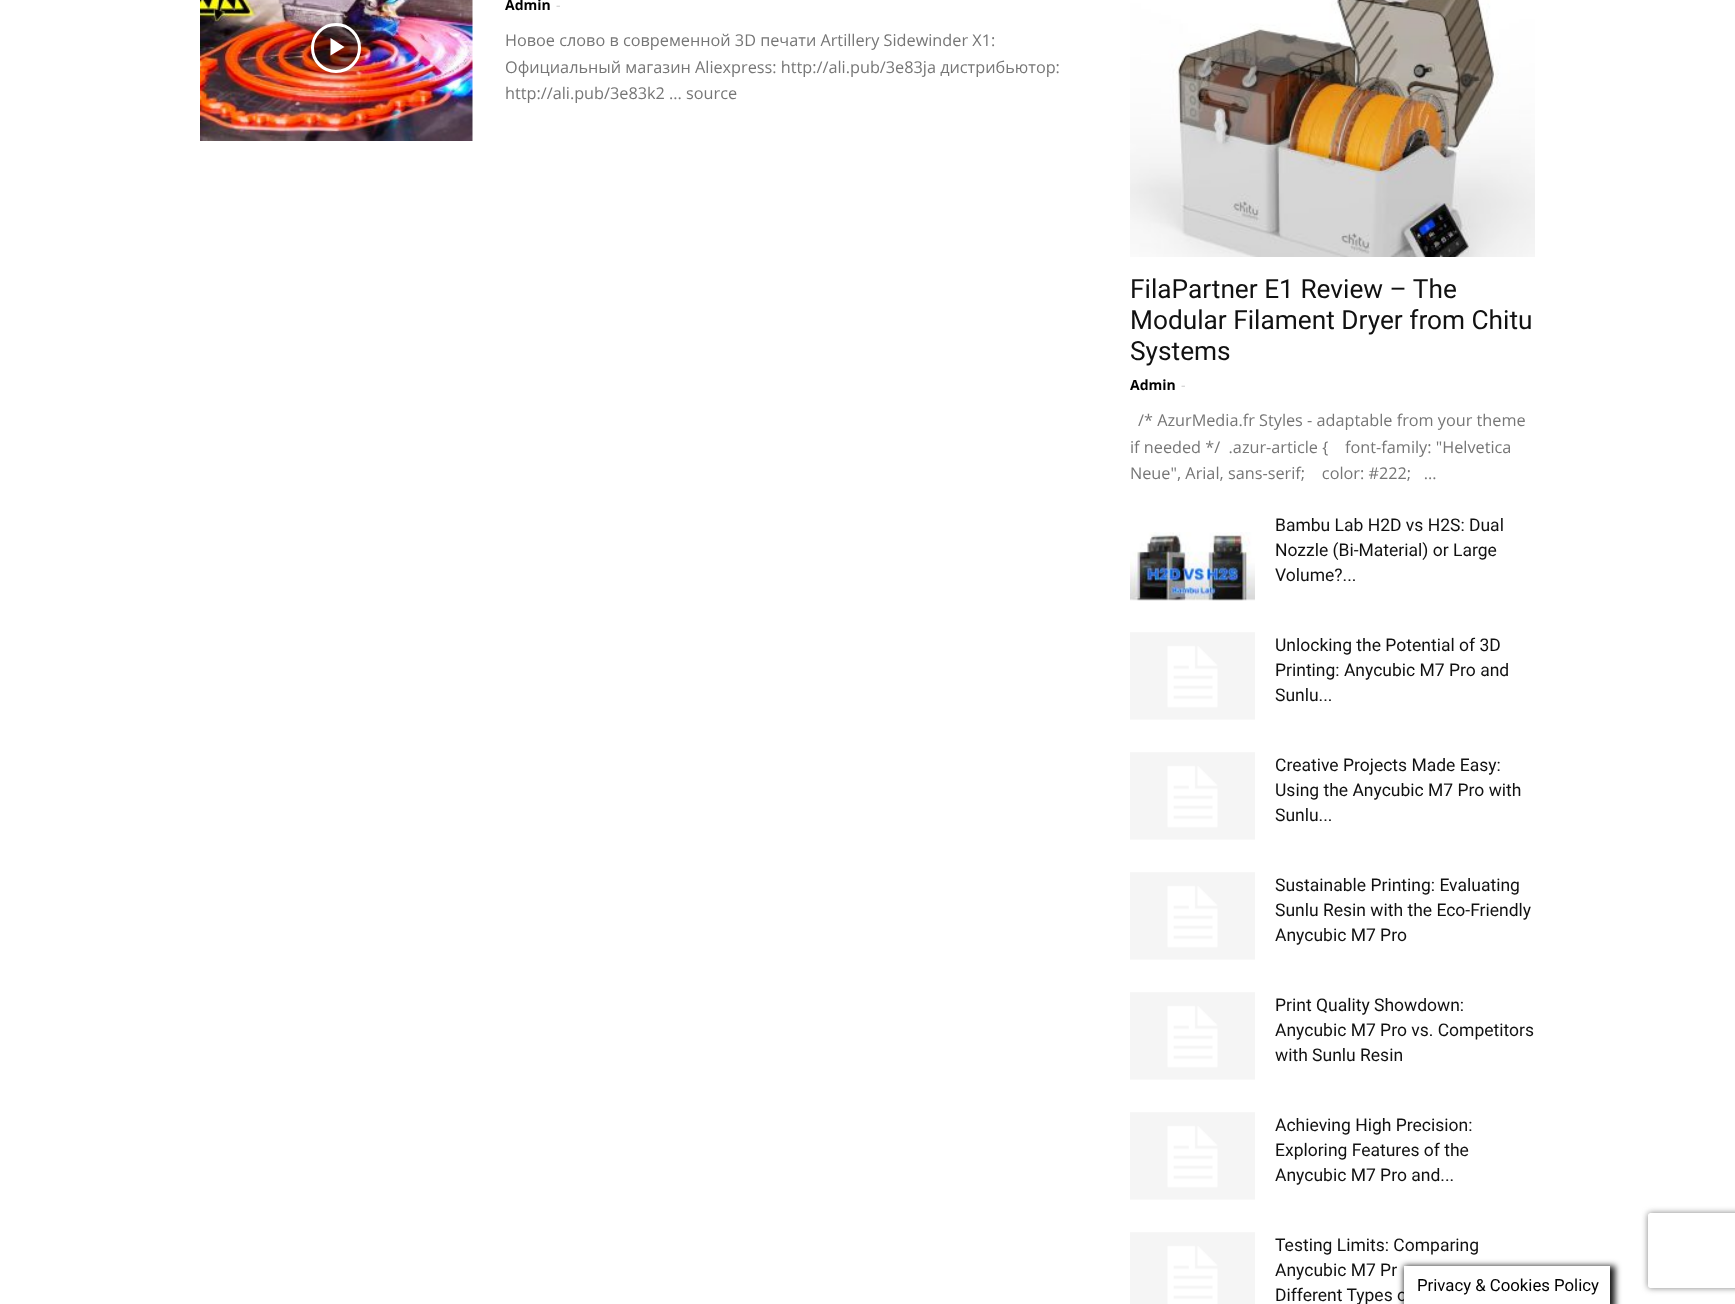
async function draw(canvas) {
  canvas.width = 1735;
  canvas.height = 1304;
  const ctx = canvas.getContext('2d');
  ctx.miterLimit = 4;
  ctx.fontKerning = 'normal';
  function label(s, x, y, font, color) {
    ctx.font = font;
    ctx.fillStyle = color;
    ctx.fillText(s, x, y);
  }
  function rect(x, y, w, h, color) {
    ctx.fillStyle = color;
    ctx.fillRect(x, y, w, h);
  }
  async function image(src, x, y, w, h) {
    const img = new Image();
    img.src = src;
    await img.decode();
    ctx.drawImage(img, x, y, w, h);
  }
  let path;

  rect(0, 0, 1735, 1304, '#fff');
  await image('assets/img1.png', 200, 0, 273, 141);
  ctx.save();
  path = new Path2D('M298 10H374V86H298ZM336 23C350 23 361 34 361 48C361 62 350 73 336 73C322 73 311 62 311 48C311 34 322 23 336 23Z');
  ctx.clip(path, 'evenodd');
  ctx.fillStyle = '#00000066';
  ctx.filter = 'blur(4px)';
  ctx.beginPath();
  ctx.roundRect(311, 23, 50, 50, 25);
  ctx.fill();
  ctx.filter = 'none';
  ctx.restore();
  ctx.fillStyle = '#0000007a';
  ctx.beginPath();
  ctx.arc(336, 48, 23.5, 0, 2 * Math.PI);
  ctx.fill();
  ctx.strokeStyle = '#fff';
  ctx.lineWidth = 3;
  ctx.stroke();
  ctx.fillStyle = '#fff';
  path = new Path2D('M330.5 38V55.5L344.5 47Z');
  ctx.fill(path);
  label('Admin', 505, 10, 'bold 14px Open Sans', '#000');
  label('-', 556, 10, '14px Open Sans', '#ccc');
  label('Новое слово в современной 3D печати Artillery Sidewinder X1:', 505, 46, '16.25px Open Sans', '#767676');
  label('Официальный магазин Aliexpress: http://ali.pub/3e83ja дистрибьютор:', 505, 73, '16.25px Open Sans', '#767676');
  label('http://ali.pub/3e83k2 ... source', 505, 99, '16.25px Open Sans', '#767676');
  await image('assets/img2.png', 1130, 0, 405, 257);
  label('FilaPartner E1 Review – The', 1130, 298, '26.25px Roboto', '#111');
  label('Modular Filament Dryer from Chitu', 1130, 329, '26.25px Roboto', '#111');
  label('Systems', 1130, 360, '26.25px Roboto', '#111');
  label('Admin', 1130, 390, 'bold 14px Open Sans', '#000');
  label('-', 1181, 390, '14px Open Sans', '#ccc');
  label('/* AzurMedia.fr Styles - adaptable from your theme', 1138, 426, '16.25px Open Sans', '#767676');
  label('if needed */  .azur-article {    font-family: "Helvetica', 1130, 453, '16.25px Open Sans', '#767676');
  label('Neue", Arial, sans-serif;    color: #222;   ...', 1130, 479, '16.25px Open Sans', '#767676');
  await image('assets/img3.png', 1130, 532, 125, 69);
  label('Bambu Lab H2D vs H2S: Dual', 1275, 531, '17.5px Roboto', '#111');
  label('Nozzle (Bi-Material) or Large', 1275, 556, '17.5px Roboto', '#111');
  label('Volume?...', 1275, 581, '17.5px Roboto', '#111');
  await image('assets/img4.png', 1130, 632, 125, 88);
  label('Unlocking the Potential of 3D', 1275, 651, '17.5px Roboto', '#111');
  label('Printing: Anycubic M7 Pro and', 1275, 676, '17.5px Roboto', '#111');
  label('Sunlu...', 1275, 701, '17.5px Roboto', '#111');
  await image('assets/img4.png', 1130, 752, 125, 88);
  label('Creative Projects Made Easy:', 1275, 771, '17.5px Roboto', '#111');
  label('Using the Anycubic M7 Pro with', 1275, 796, '17.5px Roboto', '#111');
  label('Sunlu...', 1275, 821, '17.5px Roboto', '#111');
  await image('assets/img4.png', 1130, 872, 125, 88);
  label('Sustainable Printing: Evaluating', 1275, 891, '17.5px Roboto', '#111');
  label('Sunlu Resin with the Eco-Friendly', 1275, 916, '17.5px Roboto', '#111');
  label('Anycubic M7 Pro', 1275, 941, '17.5px Roboto', '#111');
  await image('assets/img5.png', 1130, 992, 125, 88);
  label('Print Quality Showdown:', 1275, 1011, '17.5px Roboto', '#111');
  label('Anycubic M7 Pro vs. Competitors', 1275, 1036, '17.5px Roboto', '#111');
  label('with Sunlu Resin', 1275, 1061, '17.5px Roboto', '#111');
  await image('assets/img4.png', 1130, 1112, 125, 88);
  label('Achieving High Precision:', 1275, 1131, '17.5px Roboto', '#111');
  label('Exploring Features of the', 1275, 1156, '17.5px Roboto', '#111');
  label('Anycubic M7 Pro and...', 1275, 1181, '17.5px Roboto', '#111');
  await image('assets/img6.png', 1130, 1232, 125, 72);
  label('Testing Limits: Comparing', 1275, 1251, '17.5px Roboto', '#111');
  label('Anycubic M7 Pr', 1275, 1276, '17.5px Roboto', '#111');
  label('Different Types o', 1275, 1301, '17.5px Roboto', '#111');
  ctx.save();
  path = new Path2D('M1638 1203H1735V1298H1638ZM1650.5 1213H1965.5C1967 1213 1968 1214 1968 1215.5V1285.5C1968 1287 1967 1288 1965.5 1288H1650.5C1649 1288 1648 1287 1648 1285.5V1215.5C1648 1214 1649 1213 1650.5 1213Z');
  ctx.clip(path, 'evenodd');
  ctx.fillStyle = '#808080';
  ctx.filter = 'blur(3px)';
  ctx.beginPath();
  ctx.roundRect(1648, 1213, 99, 75, 2.5);
  ctx.fill();
  ctx.filter = 'none';
  ctx.restore();
  ctx.fillStyle = '#161616';
  ctx.filter = 'blur(3px)';
  ctx.beginPath();
  ctx.rect(1404, 1266, 211, 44);
  ctx.fill();
  ctx.filter = 'none';
  rect(1404, 1266, 206, 38, '#fff');
  label('Privacy & Cookies Policy', 1417, 1291, '16.75px Roboto', '#000');
}

draw(document.querySelector('canvas'));
